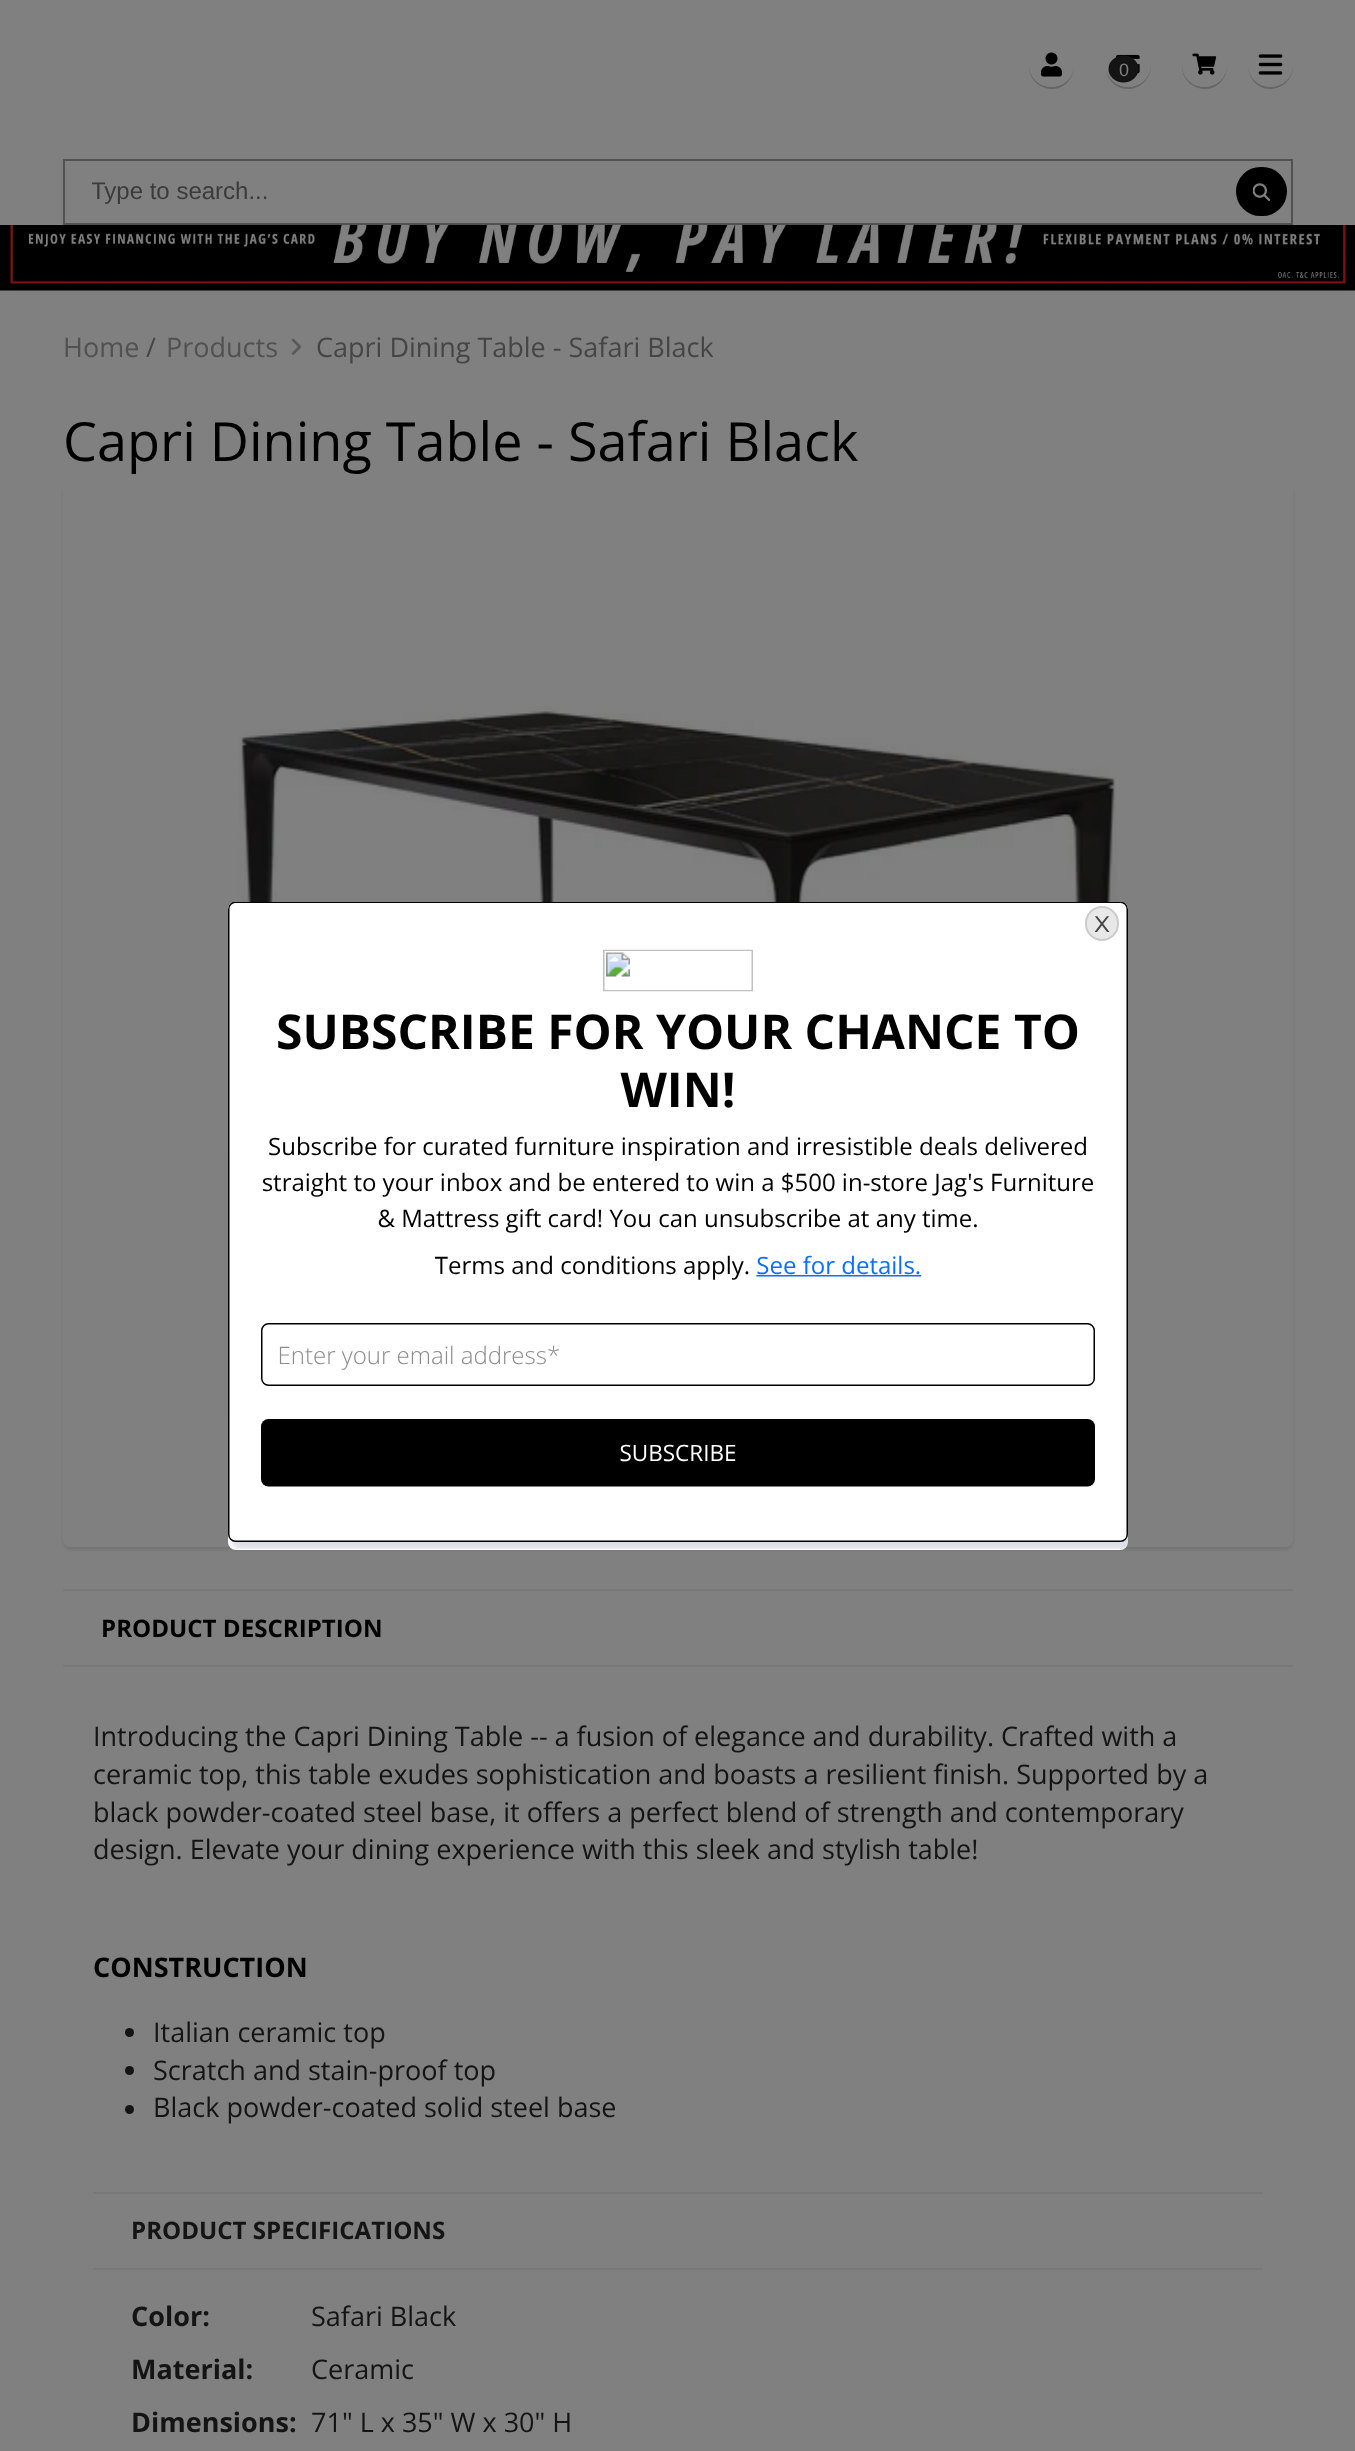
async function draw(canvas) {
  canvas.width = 1355;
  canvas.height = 2451;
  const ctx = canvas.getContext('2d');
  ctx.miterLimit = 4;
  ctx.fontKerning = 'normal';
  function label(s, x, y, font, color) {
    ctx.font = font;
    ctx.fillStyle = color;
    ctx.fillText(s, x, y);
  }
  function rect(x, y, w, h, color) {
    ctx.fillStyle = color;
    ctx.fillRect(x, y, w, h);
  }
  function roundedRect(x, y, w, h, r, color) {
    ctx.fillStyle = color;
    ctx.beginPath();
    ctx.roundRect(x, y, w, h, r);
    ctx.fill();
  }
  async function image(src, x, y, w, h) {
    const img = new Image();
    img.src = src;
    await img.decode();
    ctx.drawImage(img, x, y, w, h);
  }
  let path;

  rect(0, 0, 1355, 2451, '#808080');
  ctx.fillStyle = '#656666';
  path = new Path2D('M1029 65C1028 88 1058 98 1070 79C1073 75 1074 70 1074 65C1073 94 1030 94 1029 65Z');
  ctx.fill(path);
  ctx.fillStyle = '#808080';
  ctx.beginPath();
  ctx.arc(1051.5, 64.5, 22.5, 0, 2 * Math.PI);
  ctx.fill();
  await image('assets/img1.png', 1041, 52, 21, 25);
  ctx.fillStyle = '#656666';
  path = new Path2D('M1106 71C1107 76 1110 81 1114 84C1131 98 1156 81 1150 60C1156 88 1115 98 1106 71Z');
  ctx.fill(path);
  ctx.fillStyle = '#808080';
  ctx.beginPath();
  ctx.arc(1128.5, 64.5, 22.5, 0, 2 * Math.PI);
  ctx.fill();
  await image('assets/img2.png', 1116, 54, 24, 20);
  ctx.fillStyle = '#656666';
  path = new Path2D('M1248 65C1248 70 1249 75 1252 79C1264 98 1294 88 1293 65C1292 94 1249 94 1248 65Z');
  ctx.fill(path);
  ctx.fillStyle = '#808080';
  ctx.beginPath();
  ctx.arc(1270.5, 64.5, 22.5, 0, 2 * Math.PI);
  ctx.fill();
  await image('assets/img3.png', 1258, 54, 25, 21);
  ctx.fillStyle = '#141414';
  ctx.beginPath();
  ctx.ellipse(1123.5, 69, 15, 13.5, 0, 0, 2 * Math.PI);
  ctx.fill();
  label('0', 1119, 76, '18px Liberation Sans', '#808080');
  ctx.fillStyle = '#656666';
  path = new Path2D('M1182 65C1181 88 1211 98 1223 79C1226 75 1227 70 1227 65C1226 94 1183 94 1182 65Z');
  ctx.fill(path);
  ctx.fillStyle = '#808080';
  ctx.beginPath();
  ctx.arc(1204.5, 64.5, 22.5, 0, 2 * Math.PI);
  ctx.fill();
  await image('assets/img4.png', 1192, 53, 25, 22);
  ctx.strokeStyle = '#515151';
  ctx.lineWidth = 2;
  ctx.strokeRect(64, 160, 1228, 64);
  ctx.save();
  ctx.beginPath();
  ctx.rect(92, 179, 1174, 27);
  ctx.clip();
  label('Type to search...', 91, 199, '24px Liberation Sans', '#3b3b3b');
  ctx.restore();
  roundedRect(1236, 167, 51, 49, 24.5, '#000');
  await image('assets/img5.png', 1253, 183, 17, 18);
  await image('assets/img6.png', 0, 225, 1355, 66);
  label('Home', 63, 357, '27px Open Sans', '#515151');
  label('/', 146, 357, '27px Open Sans', '#454545');
  label('Products', 166, 357, '27px Open Sans', '#515151');
  await image('assets/img7.png', 291, 338, 11, 17);
  label('Capri Dining Table - Safari Black', 316, 357, '27px Open Sans', '#454545');
  label('Capri Dining Table - Safari Black', 63, 461, '54px Open Sans', '#000');
  ctx.save();
  path = new Path2D('M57 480H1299V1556H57ZM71 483H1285C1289.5 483 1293 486.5 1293 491V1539C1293 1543.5 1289.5 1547 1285 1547H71C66.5 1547 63 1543.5 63 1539V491C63 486.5 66.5 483 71 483Z');
  ctx.clip(path, 'evenodd');
  ctx.fillStyle = '#060d0e1a';
  ctx.filter = 'blur(1.5px)';
  ctx.beginPath();
  ctx.roundRect(63, 486, 1230, 1064, 8);
  ctx.fill();
  ctx.filter = 'none';
  ctx.restore();
  roundedRect(63, 483, 1230, 1064, 8, '#808080');
  await image('assets/img8.png', 239, 706, 878, 196);
  rect(63, 1589, 1230, 2, '#787878');
  rect(63, 1665, 1230, 2, '#787878');
  label('PRODUCT DESCRIPTION', 101, 1637, 'bold 24.1px Open Sans', '#000');
  label('Introducing the Capri Dining Table -- a fusion of elegance and durability. Crafted with a', 93, 1746, '27px Open Sans', '#141414');
  label('ceramic top, this table exudes sophistication and boasts a resilient finish. Supported by a', 93, 1784, '27px Open Sans', '#141414');
  label('black powder-coated steel base, it offers a perfect blend of strength and contemporary', 93, 1822, '27px Open Sans', '#141414');
  label('design. Elevate your dining experience with this sleek and stylish table!', 93, 1859, '27px Open Sans', '#141414');
  label('CONSTRUCTION', 93, 1977, 'bold 27px Open Sans', '#000');
  ctx.fillStyle = '#141414';
  ctx.beginPath();
  ctx.arc(129.5, 2032.5, 4.5, 0, 2 * Math.PI);
  ctx.fill();
  label('Italian ceramic top', 153, 2042, '27px Open Sans', '#141414');
  ctx.beginPath();
  ctx.arc(129.5, 2070.5, 4.5, 0, 2 * Math.PI);
  ctx.fill();
  label('Scratch and stain-proof top', 153, 2080, '27px Open Sans', '#141414');
  ctx.beginPath();
  ctx.arc(129.5, 2109.5, 4.5, 0, 2 * Math.PI);
  ctx.fill();
  label('Black powder-coated solid steel base', 153, 2117, '27px Open Sans', '#141414');
  rect(93, 2192, 1170, 2, '#787878');
  rect(93, 2268, 1170, 2, '#787878');
  label('PRODUCT SPECIFICATIONS', 131, 2239, 'bold 24.1px Open Sans', '#141414');
  label('Color:', 131, 2326, 'bold 27px Open Sans', '#141414');
  label('Safari Black', 311, 2326, '27px Open Sans', '#141414');
  label('Material:', 131, 2379, 'bold 27px Open Sans', '#141414');
  label('Ceramic', 311, 2379, '27px Open Sans', '#141414');
  label('Dimensions:', 131, 2432, 'bold 27px Open Sans', '#141414');
  label('71" L x 35" W x 30" H', 311, 2432, '27px Open Sans', '#141414');
  roundedRect(228, 902, 900, 648, 8, '#fff');
  await image('assets/img9.png', 228, 902, 900, 648);
  ctx.fillStyle = '#e8e8e8';
  ctx.beginPath();
  ctx.roundRect(1086, 907, 32, 33, 16);
  ctx.fill();
  ctx.strokeStyle = '#ccc';
  ctx.stroke();
  label('x', 1094, 932, '30px Montserrat', '#454545');
}

draw(document.querySelector('canvas'));
